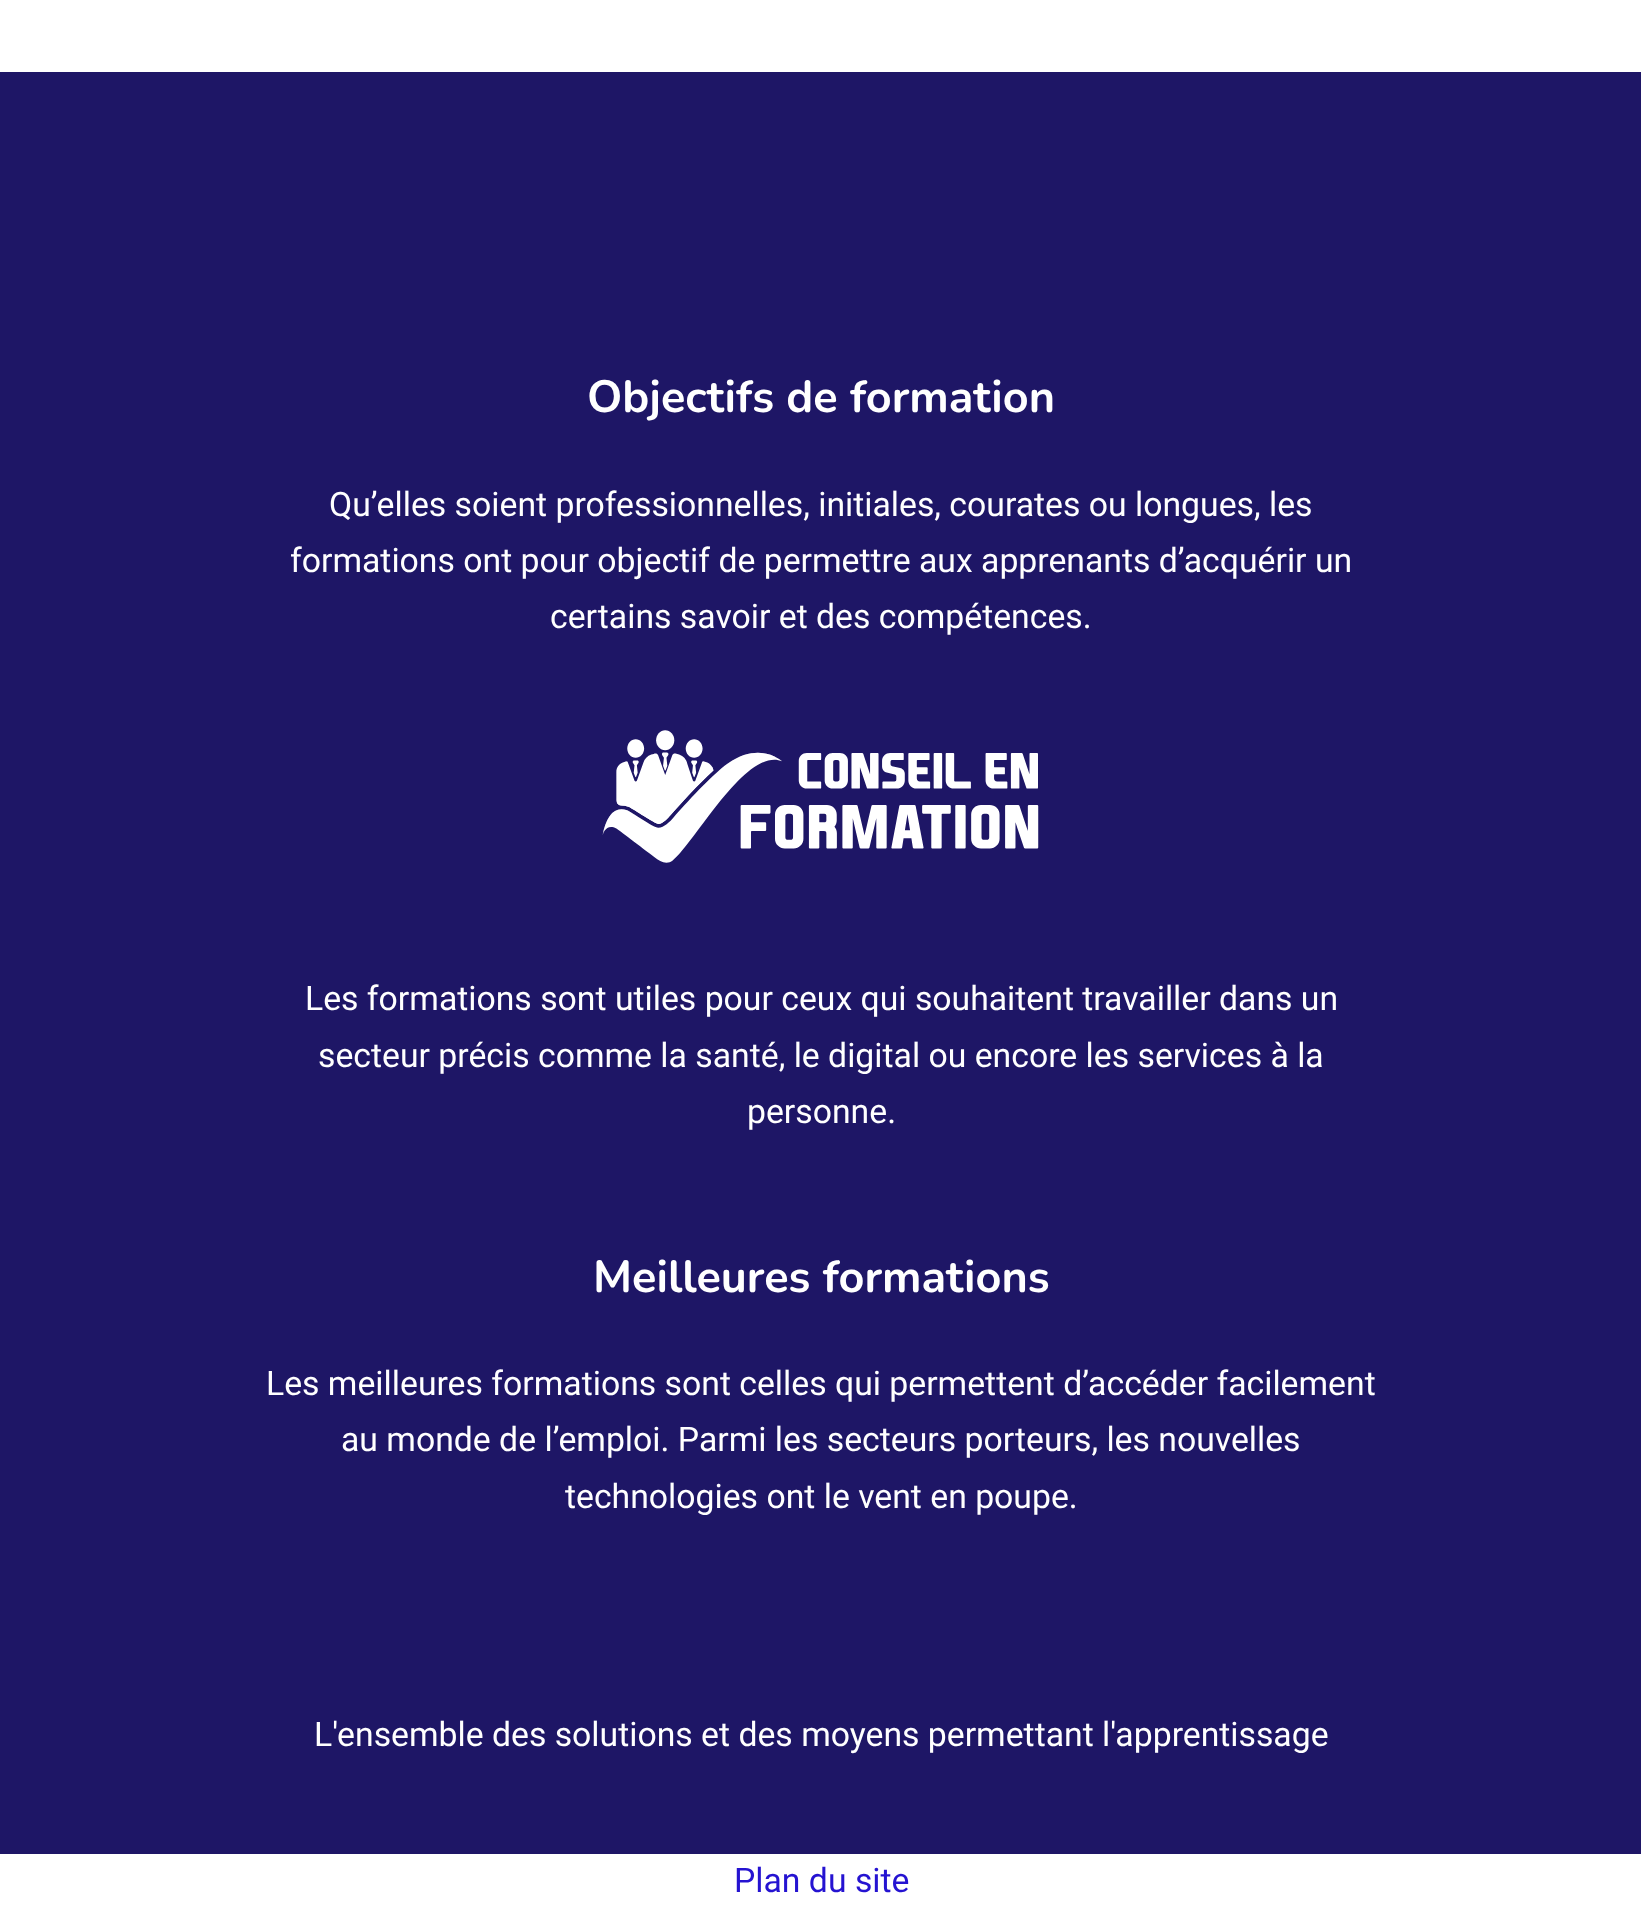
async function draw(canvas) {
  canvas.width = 1641;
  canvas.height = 1909;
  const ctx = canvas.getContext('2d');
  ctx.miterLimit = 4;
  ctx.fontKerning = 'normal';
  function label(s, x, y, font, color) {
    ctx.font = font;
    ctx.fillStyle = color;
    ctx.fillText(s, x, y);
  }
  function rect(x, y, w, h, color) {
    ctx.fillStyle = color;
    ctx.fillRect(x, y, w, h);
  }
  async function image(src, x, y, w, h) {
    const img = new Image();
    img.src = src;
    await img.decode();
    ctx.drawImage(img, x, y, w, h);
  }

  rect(0, 0, 1641, 1909, '#fff');
  rect(0, 72, 1641, 1782, '#1e1666');
  label('Objectifs de formation', 587, 412, 'bold 45px Nunito', '#fff');
  label('Qu’elles soient professionnelles, initiales, courates ou longues, les', 329, 516, '33.75px Roboto', '#fff');
  label('formations ont pour objectif de permettre aux apprenants d’acquérir un', 290, 572, '33.75px Roboto', '#fff');
  label('certains savoir et des compétences.', 550, 628, '33.75px Roboto', '#fff');
  await image('assets/img1.png', 602, 730, 437, 133);
  label('Les formations sont utiles pour ceux qui souhaitent travailler dans un', 305, 1010, '33.75px Roboto', '#fff');
  label('secteur précis comme la santé, le digital ou encore les services à la', 318, 1067, '33.75px Roboto', '#fff');
  label('personne.', 747, 1123, '33.75px Roboto', '#fff');
  label('Meilleures formations', 593, 1292, 'bold 45px Nunito', '#fff');
  label('Les meilleures formations sont celles qui permettent d’accéder facilement', 266, 1395, '33.75px Roboto', '#fff');
  label('au monde de l’emploi. Parmi les secteurs porteurs, les nouvelles', 341, 1451, '33.75px Roboto', '#fff');
  label('technologies ont le vent en poupe.', 565, 1508, '33.75px Roboto', '#fff');
  label('L\'ensemble des solutions et des moyens permettant l\'apprentissage', 314, 1746, '33.75px Roboto', '#fff');
  label('Plan du site', 734, 1892, '33.75px Roboto', '#2513d1');
}

draw(document.querySelector('canvas'));
